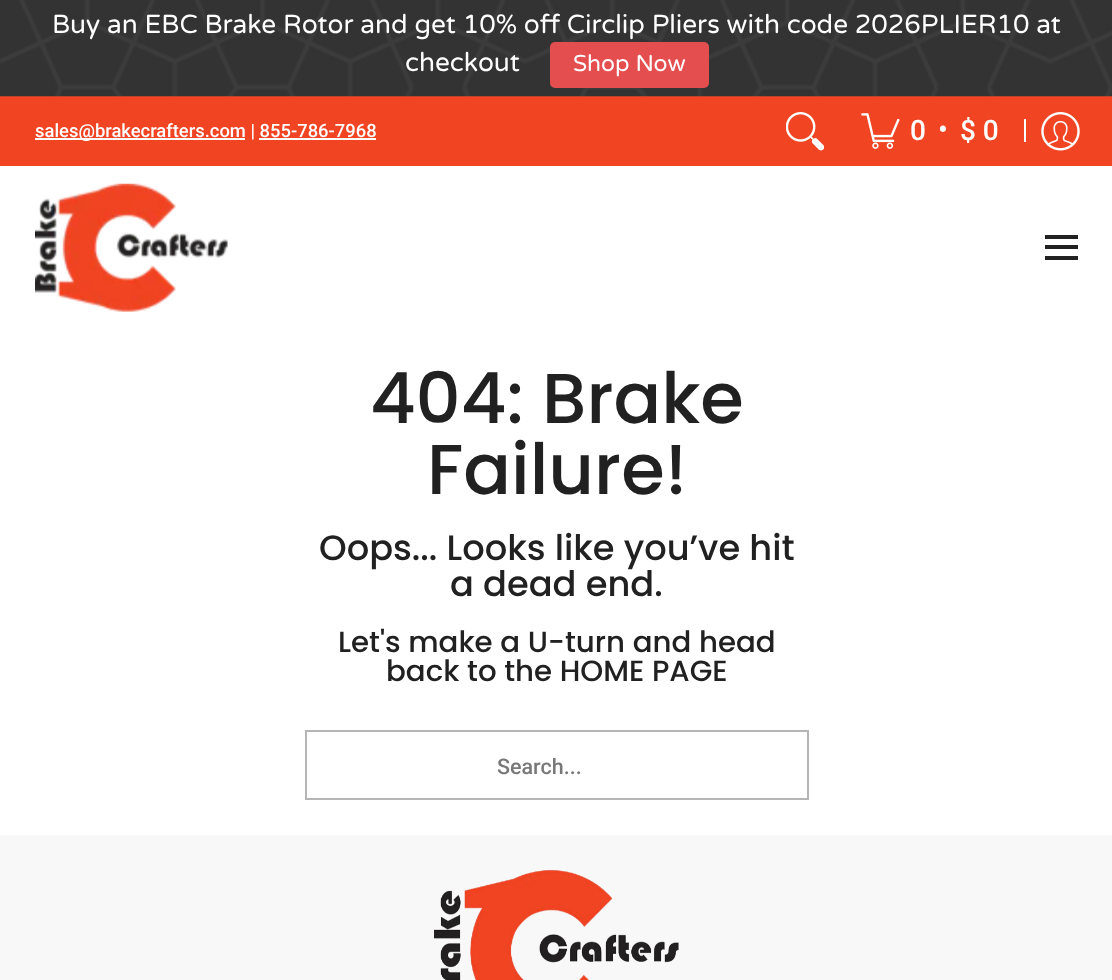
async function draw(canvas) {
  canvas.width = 1112;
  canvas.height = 980;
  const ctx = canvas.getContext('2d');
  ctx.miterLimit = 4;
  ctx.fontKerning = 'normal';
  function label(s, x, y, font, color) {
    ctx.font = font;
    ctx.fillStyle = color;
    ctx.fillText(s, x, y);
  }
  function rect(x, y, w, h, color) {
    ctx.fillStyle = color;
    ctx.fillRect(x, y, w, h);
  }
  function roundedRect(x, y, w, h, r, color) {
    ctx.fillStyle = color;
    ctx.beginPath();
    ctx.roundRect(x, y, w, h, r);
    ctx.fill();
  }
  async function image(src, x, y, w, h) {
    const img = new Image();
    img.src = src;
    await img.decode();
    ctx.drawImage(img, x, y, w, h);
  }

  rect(0, 0, 1112, 980, '#fff');
  rect(0, 96, 1112, 70, '#f04423');
  await image('assets/img1.png', 0, 0, 1112, 97);
  label('Buy an EBC Brake Rotor and get 10% off Circlip Pliers with code 2026PLIER10 at', 52, 33, '26.25px Varela Round', '#fff');
  label('checkout', 405, 71, '26.25px Varela Round', '#fff');
  roundedRect(550, 42, 159, 46, 5, '#e54e4e');
  label('Shop Now', 573, 71, '23px Varela Round', '#fff');
  rect(35, 138, 210, 2, '#fff');
  label('sales@brakecrafters.com | 855-786-7968', 35, 137, '500 18.4px Roboto', '#fff');
  rect(259, 138, 117, 2, '#fff');
  await image('assets/img2.png', 786, 112, 38, 39);
  await image('assets/img3.png', 861, 113, 39, 36);
  label('0', 910, 140, '500 28px Roboto', '#fff');
  label('•', 938, 139, '500 28px Roboto', '#fff');
  label('$ 0', 960, 140, '500 28px Roboto', '#fff');
  rect(1024, 119, 2, 23, '#fff');
  await image('assets/img4.png', 1041, 112, 39, 39);
  await image('assets/img5.png', 35, 183, 193, 129);
  rect(1045, 235, 33, 4, '#212121');
  rect(1045, 256, 33, 4, '#212121');
  rect(1045, 245, 33, 4, '#212121');
  label('404: Brake', 370, 423, '500 70.5px Poppins', '#212121');
  label('Failure!', 427, 494, '500 70.5px Poppins', '#212121');
  label('Oops... Looks like you’ve hit', 319, 560, '500 35.25px Poppins', '#212121');
  label('a dead end.', 450, 596, '500 35.25px Poppins', '#212121');
  label('Let\'s make a U-turn and head', 338, 652, '500 29.25px Poppins', '#212121');
  label('back to the HOME PAGE', 386, 681, '500 29.25px Poppins', '#212121');
  ctx.strokeStyle = '#b5b5b5';
  ctx.lineWidth = 2;
  ctx.strokeRect(306, 731, 502, 68);
  label('Search...', 497, 774, '500 21.5px Roboto', '#787878');
  rect(0, 835, 1112, 145, '#f8f8f8');
  await image('assets/img6.png', 434, 869, 245, 111);
}

draw(document.querySelector('canvas'));
